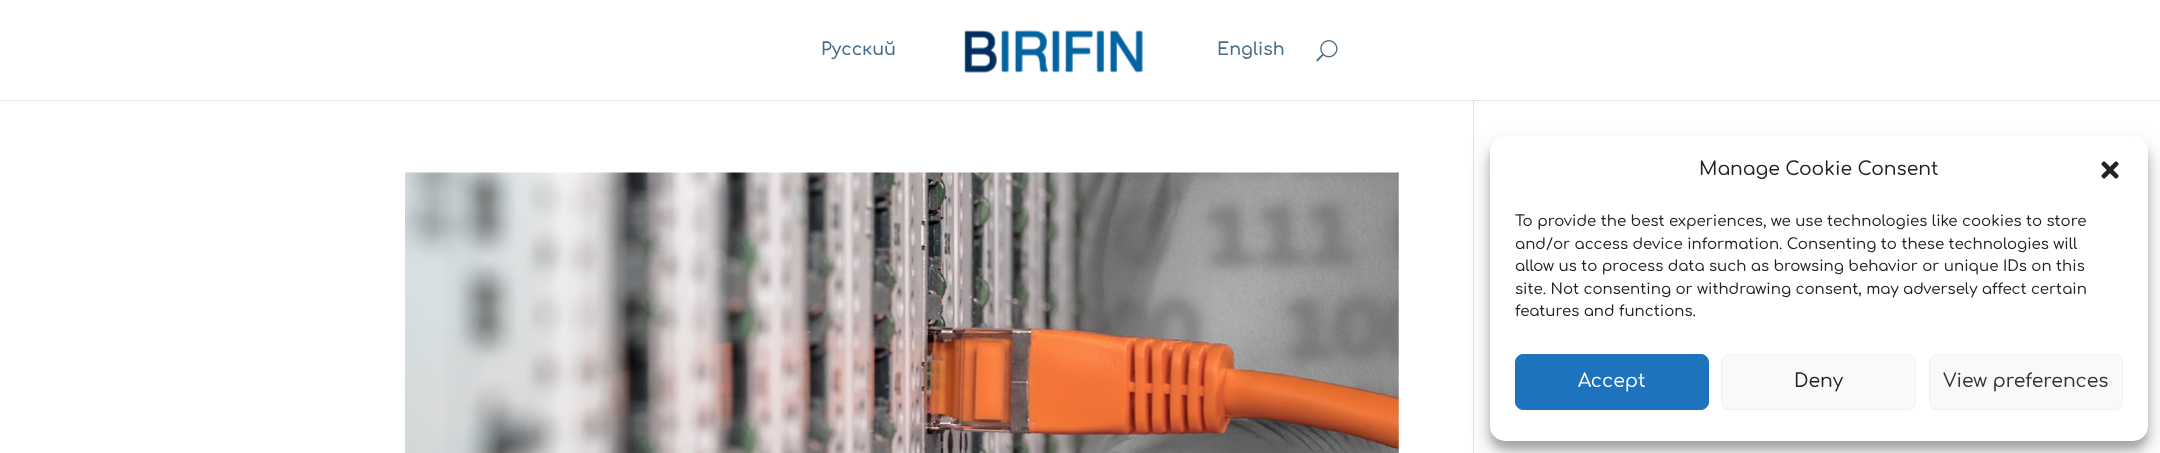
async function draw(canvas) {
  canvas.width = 2160;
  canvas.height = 453;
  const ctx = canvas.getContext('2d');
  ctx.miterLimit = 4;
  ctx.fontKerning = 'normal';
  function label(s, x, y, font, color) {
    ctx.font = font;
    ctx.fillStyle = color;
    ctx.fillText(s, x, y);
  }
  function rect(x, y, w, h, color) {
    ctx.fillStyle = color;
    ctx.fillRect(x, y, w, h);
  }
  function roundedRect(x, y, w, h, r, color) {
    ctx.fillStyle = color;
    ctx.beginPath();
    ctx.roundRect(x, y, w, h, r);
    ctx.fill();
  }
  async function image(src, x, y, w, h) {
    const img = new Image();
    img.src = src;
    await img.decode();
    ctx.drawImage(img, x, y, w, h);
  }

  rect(0, 0, 2160, 453, '#fff');
  rect(0, 100, 2160, 1, '#e6e6e6');
  label('Русский', 821, 55, '600 17.5px Comfortaa', '#4a6c8b');
  await image('assets/img1.png', 964, 30, 179, 43);
  label('English', 1217, 55, '600 17.5px Comfortaa', '#4a6c8b');
  await image('assets/img2.png', 1316, 40, 22, 22);
  await image('assets/img3.png', 405, 172, 994, 281);
  rect(1473, 100, 1, 353, '#e2e2e2');
  rect(1473, 100, 1, 1, '#cbcbcb');
  ctx.fillStyle = '#0000003b';
  ctx.filter = 'blur(4px)';
  ctx.beginPath();
  ctx.roundRect(1490, 144, 658, 305, 15);
  ctx.fill();
  ctx.filter = 'none';
  ctx.fillStyle = '#00000030';
  ctx.filter = 'blur(12.5px)';
  ctx.beginPath();
  ctx.roundRect(1490, 149, 658, 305, 15);
  ctx.fill();
  ctx.filter = 'none';
  roundedRect(1490, 136, 658, 305, 15, '#fff');
  label('Manage Cookie Consent', 1699, 175, '500 18.75px Comfortaa', '#222');
  await image('assets/img4.png', 2101, 161, 18, 18);
  label('To provide the best experiences, we use technologies like cookies to store', 1515, 226, '500 15px Comfortaa', '#222');
  label('and/or access device information. Consenting to these technologies will', 1515, 249, '500 15px Comfortaa', '#222');
  label('allow us to process data such as browsing behavior or unique IDs on this', 1515, 271, '500 15px Comfortaa', '#222');
  label('site. Not consenting or withdrawing consent, may adversely affect certain', 1515, 294, '500 15px Comfortaa', '#222');
  label('features and functions.', 1515, 316, '500 15px Comfortaa', '#222');
  ctx.fillStyle = '#1e73be';
  ctx.beginPath();
  ctx.roundRect(1515.5, 354.5, 193, 55, 7.5);
  ctx.fill();
  ctx.strokeStyle = '#1e73be';
  ctx.stroke();
  label('Accept', 1578, 387, '500 18.75px Comfortaa', '#fff');
  ctx.fillStyle = '#f9f9f9';
  ctx.beginPath();
  ctx.roundRect(1721.5, 354.5, 194, 55, 7.5);
  ctx.fill();
  ctx.strokeStyle = '#f2f2f2';
  ctx.stroke();
  label('Deny', 1794, 387, '500 18.75px Comfortaa', '#222');
  ctx.fillStyle = '#f9f9f9';
  ctx.beginPath();
  ctx.roundRect(1929.5, 354.5, 193, 55, 7.5);
  ctx.fill();
  ctx.stroke();
  label('View preferences', 1943, 387, '500 18.75px Comfortaa', '#333');
}

draw(document.querySelector('canvas'));
